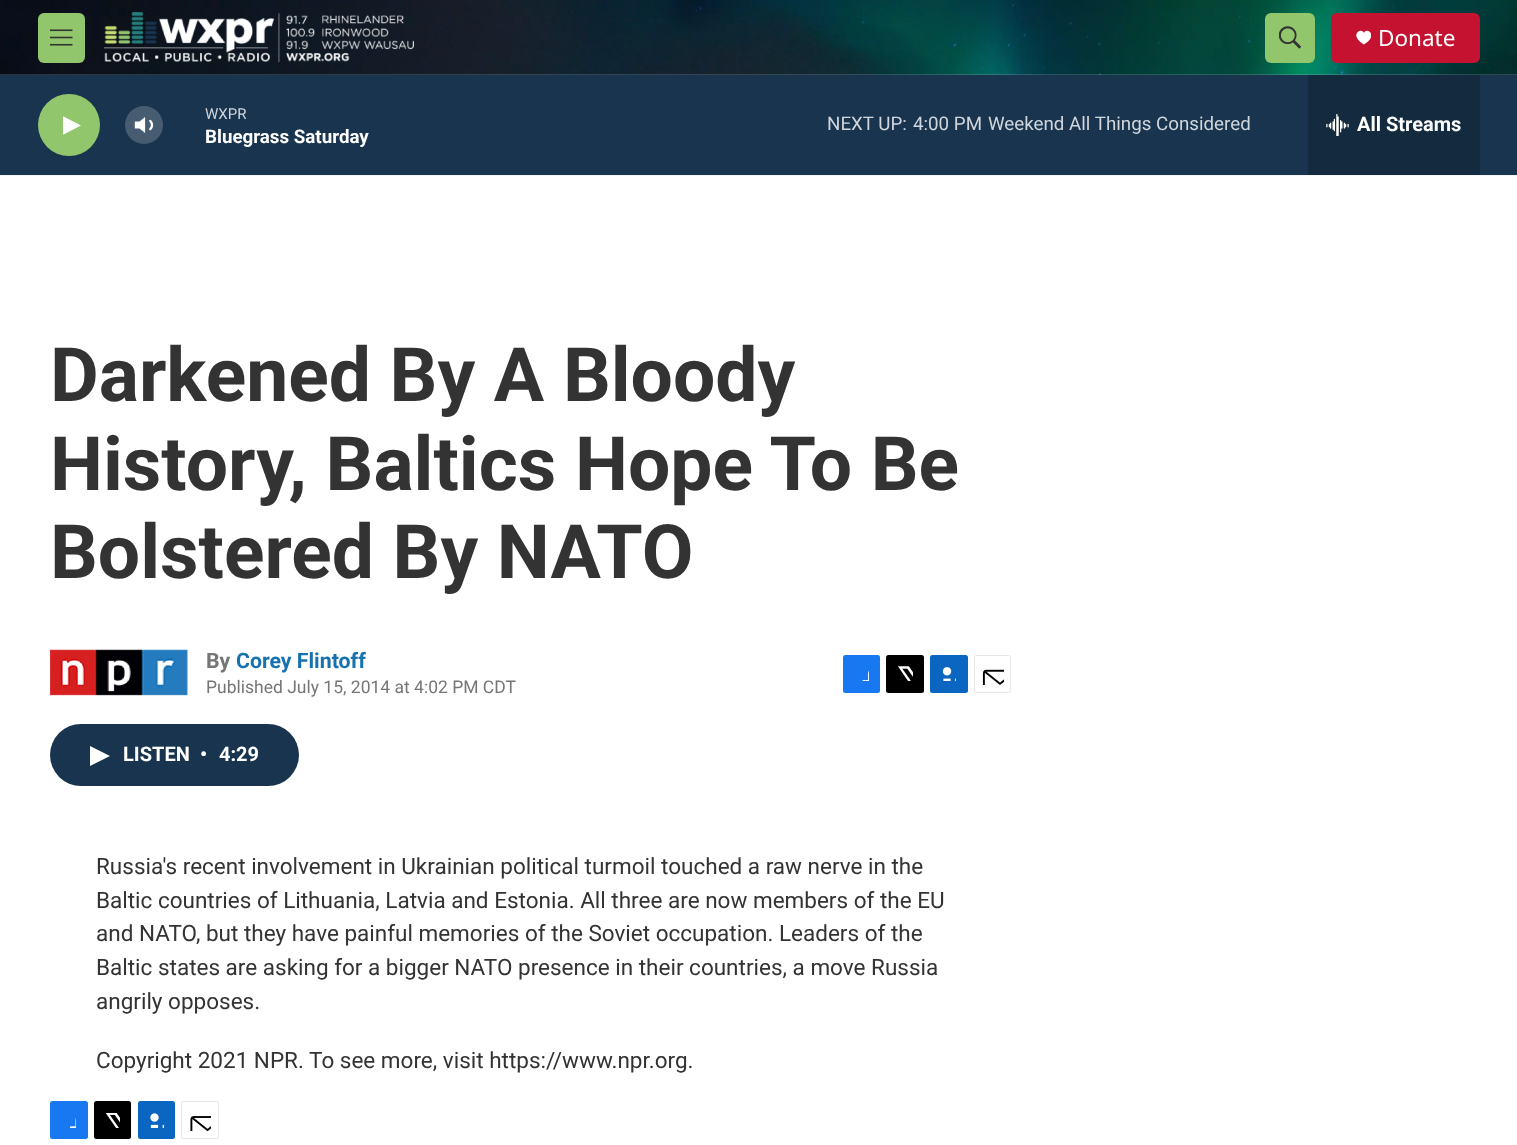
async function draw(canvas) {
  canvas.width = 1517;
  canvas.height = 1145;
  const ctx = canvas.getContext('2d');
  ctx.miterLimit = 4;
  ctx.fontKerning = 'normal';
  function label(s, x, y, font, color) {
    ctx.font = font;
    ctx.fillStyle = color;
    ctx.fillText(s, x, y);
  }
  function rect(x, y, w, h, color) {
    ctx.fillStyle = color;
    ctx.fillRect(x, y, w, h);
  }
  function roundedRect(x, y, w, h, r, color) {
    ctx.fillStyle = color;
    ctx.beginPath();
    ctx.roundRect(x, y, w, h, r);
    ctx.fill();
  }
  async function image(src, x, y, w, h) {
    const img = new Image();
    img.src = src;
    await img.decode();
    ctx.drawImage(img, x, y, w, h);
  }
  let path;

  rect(0, 0, 1517, 1145, '#fff');
  rect(0, 175, 1517, 1, '#f5f5f5');
  await image('assets/img1.png', 0, 0, 1517, 75);
  roundedRect(38, 13, 47, 50, 6, '#92c66c');
  await image('assets/img2.png', 50, 29, 23, 17);
  await image('assets/img3.png', 104, 12, 310, 51);
  roundedRect(1265, 13, 50, 50, 6, '#92c66c');
  await image('assets/img4.png', 1279, 26, 22, 23);
  roundedRect(1331, 13, 149, 50, 6, '#c41230');
  ctx.save();
  ctx.beginPath();
  ctx.rect(1356, 30, 15, 15);
  ctx.clip();
  ctx.fillStyle = '#fff';
  path = new Path2D('M1364 33C1361.5 26.5 1348 35 1364 44.5C1379.5 35 1366 26.5 1364 33Z');
  ctx.fill(path);
  ctx.restore();
  label('Donate', 1378, 46, '22.5px Noto Sans', '#fff');
  rect(0, 75, 1517, 100, '#19344e');
  ctx.fillStyle = '#92c66c';
  ctx.beginPath();
  ctx.arc(69, 125, 31, 0, 2 * Math.PI);
  ctx.fill();
  ctx.save();
  ctx.beginPath();
  ctx.rect(63, 114, 18, 24);
  ctx.clip();
  ctx.fillStyle = '#fff';
  path = new Path2D('M62.5 116L81 125.5L62.5 135Z');
  ctx.fill(path);
  ctx.restore();
  await image('assets/img5.png', 134, 117, 20, 16);
  ctx.fillStyle = '#ffffff33';
  ctx.beginPath();
  ctx.arc(144, 125, 19, 0, 2 * Math.PI);
  ctx.fill();
  label('WXPR', 205, 119, '15px "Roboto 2"', '#d1d6dc');
  label('Bluegrass Saturday', 205, 143, 'bold 18.75px "Roboto 2"', '#fff');
  label('NEXT UP:', 827, 130, '18.75px "Roboto 2"', '#d1d6dc');
  label('4:00 PM', 913, 130, '18.75px "Roboto 2"', '#d1d6dc');
  label('Weekend All Things Considered', 988, 130, '18.75px "Roboto 2"', '#d1d6dc');
  rect(1308, 75, 172, 100, '#142a3e');
  await image('assets/img6.png', 1326, 114, 23, 22);
  label('All Streams', 1357, 131, 'bold 20px "Roboto 2"', '#fff');
  label('Darkened By A Bloody', 50, 401, 'bold 75px Roboto', '#333');
  label('History, Baltics Hope To Be', 50, 490, 'bold 75px Roboto', '#333');
  label('Bolstered By NATO', 50, 578, 'bold 75px Roboto', '#333');
  await image('assets/img7.png', 50, 649, 138, 47);
  label('By', 206, 668, 'bold 21.25px Roboto', '#767676');
  label('Corey Flintoff', 236, 668, 'bold 21.25px Roboto', '#1772b0');
  label('Published July 15, 2014 at 4:02 PM CDT', 206, 693, '17.5px Roboto', '#767676');
  roundedRect(843, 655, 37, 38, 2.5, '#1778f2');
  await image('assets/img8.png', 862, 670, 7, 11);
  roundedRect(886, 655, 38, 38, 2.5, '#000');
  await image('assets/img9.png', 898, 666, 15, 15);
  roundedRect(930, 655, 38, 38, 2.5, '#0a66c1');
  await image('assets/img10.png', 942, 667, 14, 14);
  ctx.beginPath();
  ctx.roundRect(974.5, 655.5, 36, 37, 2);
  ctx.strokeStyle = '#e6e6e6';
  ctx.stroke();
  await image('assets/img11.png', 982, 669, 22, 16);
  roundedRect(50, 724, 249, 62, 31, '#19344e');
  ctx.fillStyle = '#fff';
  path = new Path2D('M90 746L110 756L90 766Z');
  ctx.fill(path);
  label('LISTEN', 123, 761, 'bold 20px "Roboto 2"', '#fff');
  label('•', 200, 761, 'bold 20px "Roboto 2"', '#fff');
  label('4:29', 219, 761, 'bold 20px "Roboto 2"', '#fff');
  label('Russia\'s recent involvement in Ukrainian political turmoil touched a raw nerve in the', 96, 874, '22.5px "Roboto 2"', '#333');
  label('Baltic countries of Lithuania, Latvia and Estonia. All three are now members of the EU', 96, 908, '22.5px "Roboto 2"', '#333');
  label('and NATO, but they have painful memories of the Soviet occupation. Leaders of the', 96, 941, '22.5px "Roboto 2"', '#333');
  label('Baltic states are asking for a bigger NATO presence in their countries, a move Russia', 96, 975, '22.5px "Roboto 2"', '#333');
  label('angrily opposes.', 96, 1009, '22.5px "Roboto 2"', '#333');
  label('Copyright 2021 NPR. To see more, visit https://www.npr.org.', 96, 1068, '22.5px "Roboto 2"', '#333');
  roundedRect(50, 1101, 38, 38, 2.5, '#1778f2');
  await image('assets/img12.png', 70, 1118, 6, 10);
  roundedRect(94, 1101, 37, 38, 2.5, '#000');
  await image('assets/img13.png', 105, 1113, 15, 15);
  roundedRect(138, 1101, 37, 38, 2.5, '#0a66c1');
  await image('assets/img14.png', 150, 1113, 14, 15);
  ctx.beginPath();
  ctx.roundRect(181.5, 1101.5, 37, 37, 2);
  ctx.stroke();
  await image('assets/img15.png', 190, 1116, 21, 15);
}

draw(document.querySelector('canvas'));
